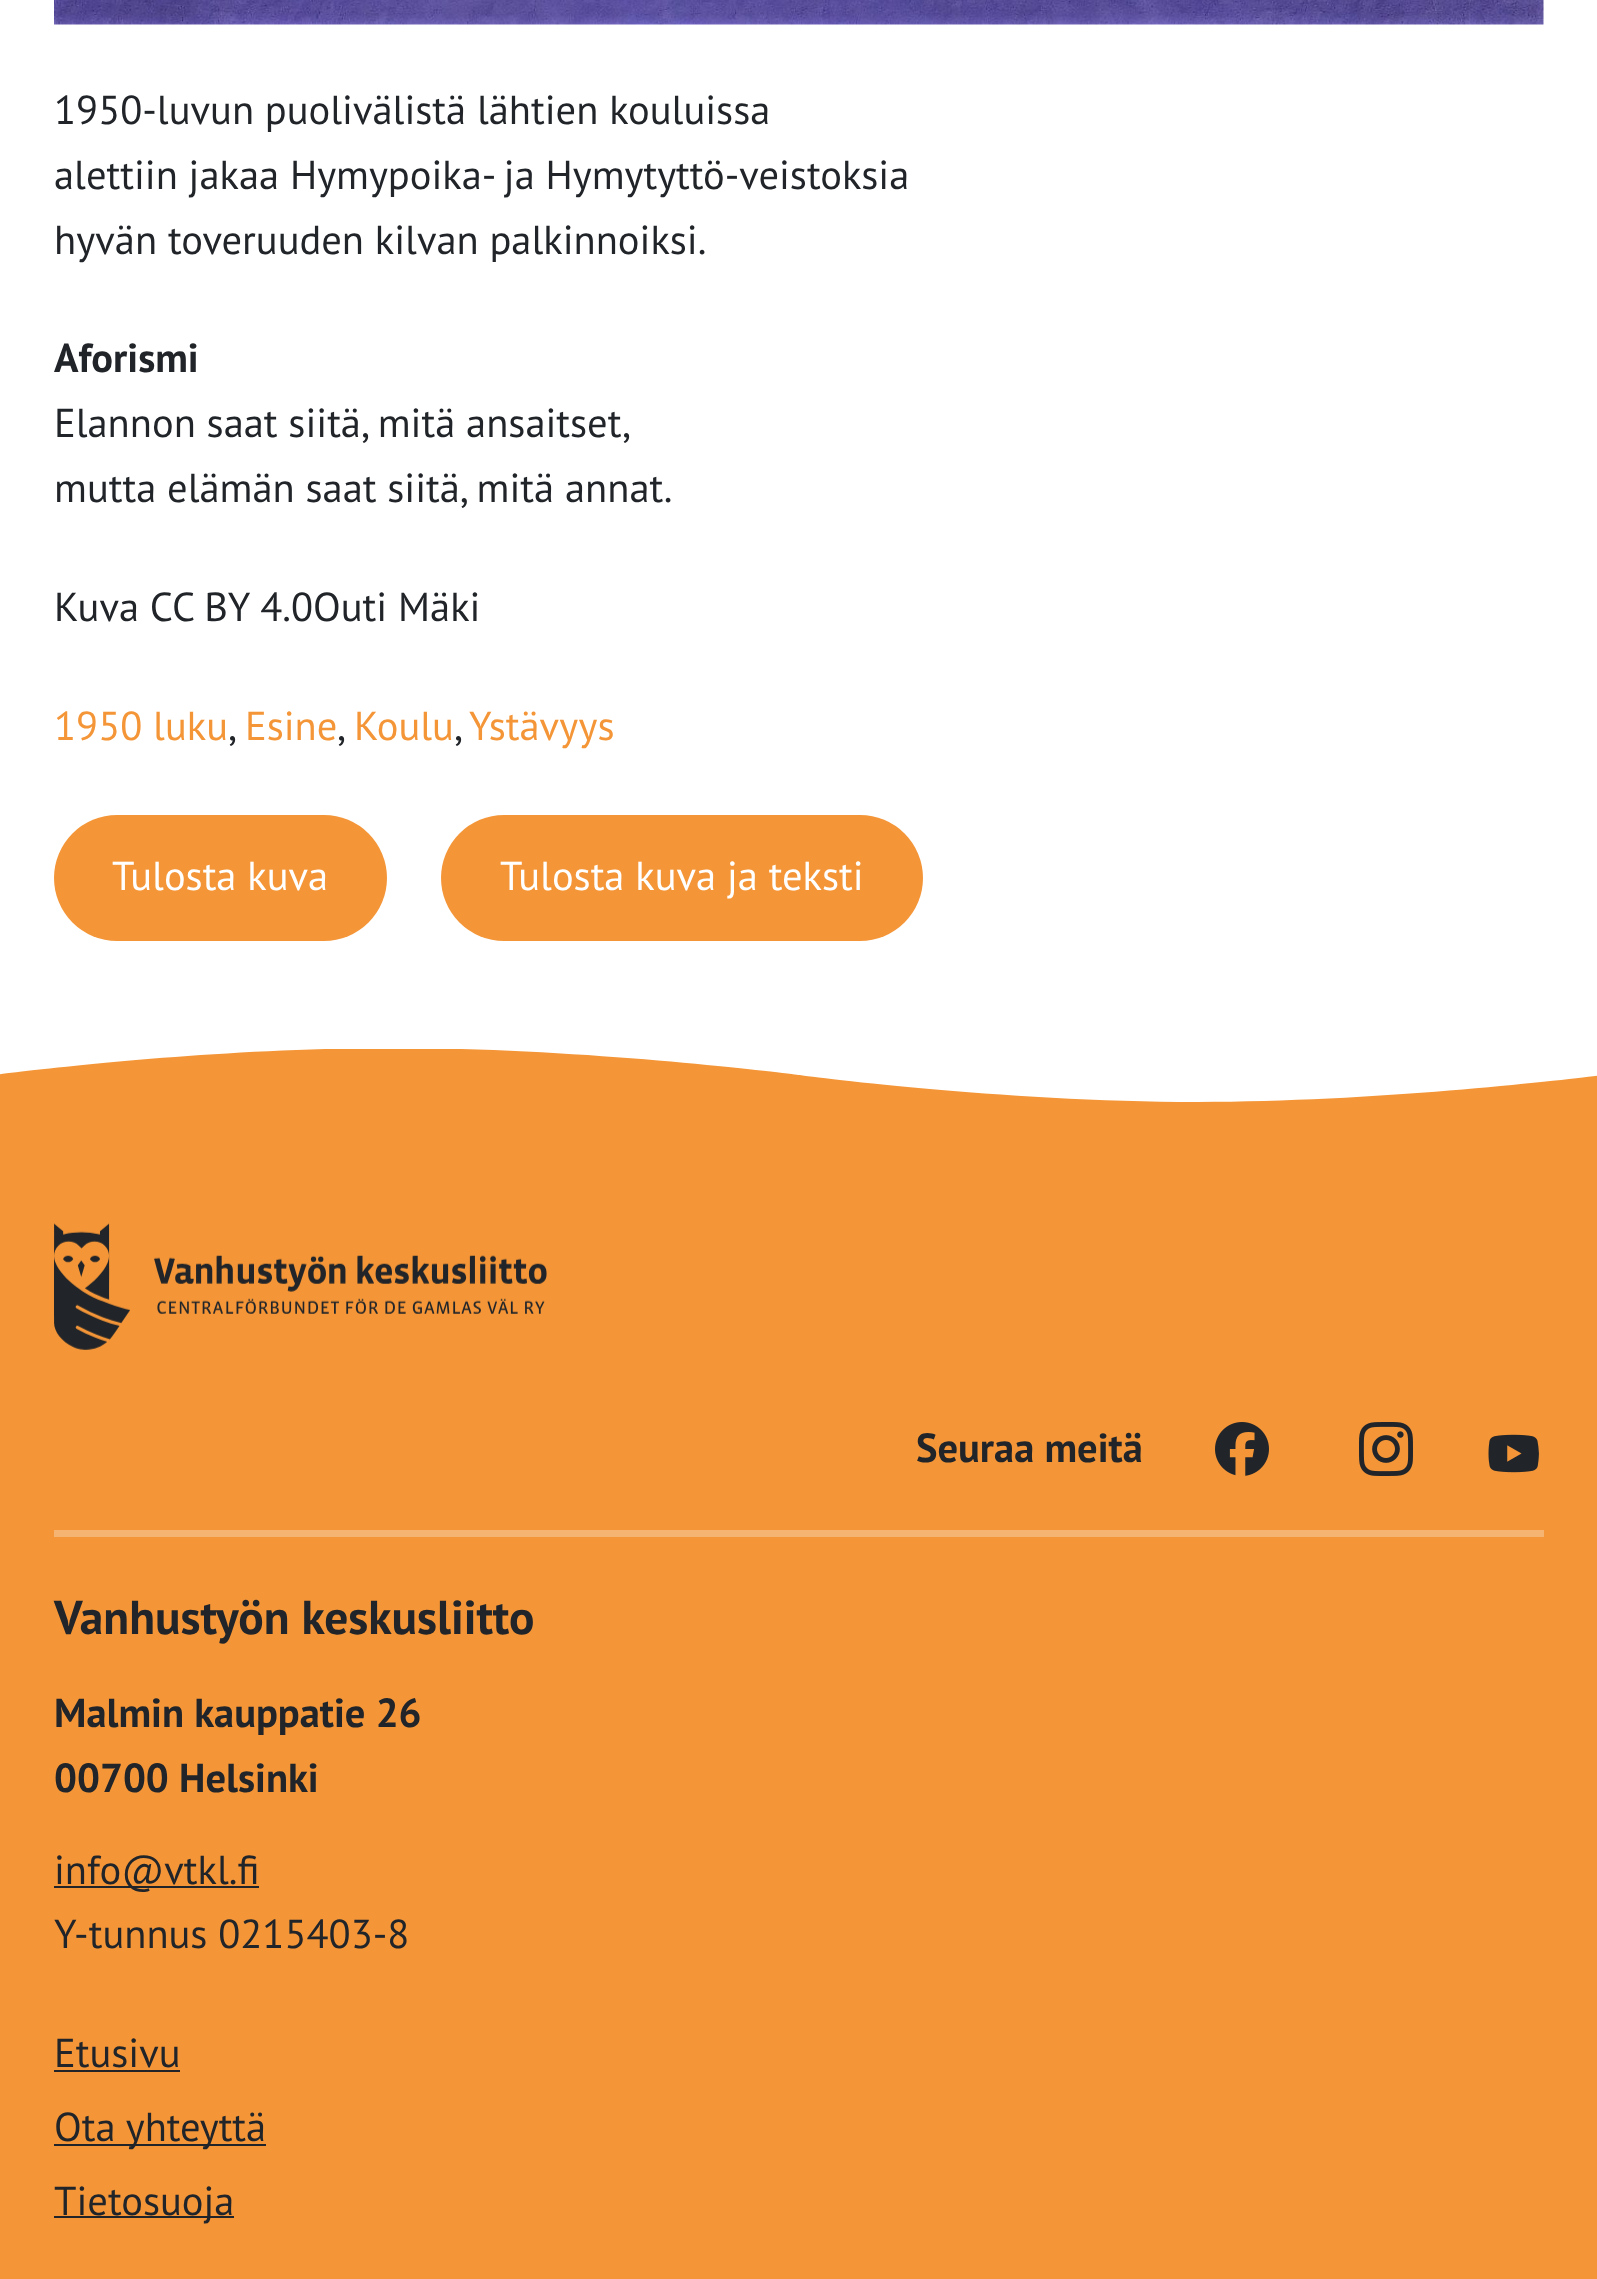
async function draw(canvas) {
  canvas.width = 1597;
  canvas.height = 2279;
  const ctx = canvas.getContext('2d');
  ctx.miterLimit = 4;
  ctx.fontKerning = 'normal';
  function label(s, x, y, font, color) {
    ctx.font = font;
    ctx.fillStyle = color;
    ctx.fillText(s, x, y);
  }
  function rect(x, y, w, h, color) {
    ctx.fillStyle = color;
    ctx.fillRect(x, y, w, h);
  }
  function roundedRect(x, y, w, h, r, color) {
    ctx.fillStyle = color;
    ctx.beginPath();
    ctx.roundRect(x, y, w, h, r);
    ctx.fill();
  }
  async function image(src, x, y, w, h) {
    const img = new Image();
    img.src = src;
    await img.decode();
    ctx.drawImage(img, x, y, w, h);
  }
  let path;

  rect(0, 0, 1597, 2279, '#fff');
  await image('assets/img1.png', 54, 0, 1490, 25);
  label('1950-luvun puolivälistä lähtien kouluissa', 54, 124, '40.5px PT Sans', '#212529');
  label('alettiin jakaa Hymypoika- ja Hymytyttö-veistoksia', 54, 189, '40.5px PT Sans', '#212529');
  label('hyvän toveruuden kilvan palkinnoiksi.', 54, 254, '40.5px PT Sans', '#212529');
  label('Aforismi', 54, 372, 'bold 40.5px PT Sans', '#212529');
  label('Elannon saat siitä, mitä ansaitset,', 54, 437, '40.5px PT Sans', '#212529');
  label('mutta elämän saat siitä, mitä annat.', 54, 502, '40.5px PT Sans', '#212529');
  label('Kuva CC BY 4.0Outi Mäki', 54, 621, '40.5px PT Sans', '#212529');
  label('1950 luku', 54, 740, '40.5px PT Sans', '#f49638');
  label(',', 228, 740, '40.5px PT Sans', '#212529');
  label('Esine', 245, 740, '40.5px PT Sans', '#f49638');
  label(',', 337, 740, '40.5px PT Sans', '#212529');
  label('Koulu', 354, 740, '40.5px PT Sans', '#f49638');
  label(',', 454, 740, '40.5px PT Sans', '#212529');
  label('Ystävyys', 469, 740, '40.5px PT Sans', '#f49638');
  roundedRect(54, 815, 333, 126, 63, '#f49638');
  label('Tulosta kuva', 112, 890, '40.5px PT Sans', '#fff');
  roundedRect(441, 815, 482, 126, 63, '#f49638');
  label('Tulosta kuva ja teksti', 500, 890, '40.5px PT Sans', '#fff');
  rect(0, 1049, 1597, 1230, '#f49638');
  ctx.save();
  ctx.beginPath();
  ctx.rect(0, 1049, 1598, 54);
  ctx.clip();
  ctx.fillStyle = '#fff';
  path = new Path2D('M-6 1048H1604V1075C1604 1075 1395 1102 1198 1102C1000 1102 799 1075 799 1075C799 1075 590 1048 393 1048C196 1048-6 1075-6 1075Z');
  ctx.fill(path);
  ctx.restore();
  rect(54, 1530, 1490, 7, '#f6b472');
  await image('assets/img2.png', 54, 1223, 493, 127);
  label('Seuraa meitä', 916, 1462, 'bold 40.5px PT Sans', '#212529');
  await image('assets/img3.png', 1215, 1422, 54, 54);
  await image('assets/img4.png', 1359, 1422, 54, 54);
  await image('assets/img5.png', 1488, 1434, 51, 39);
  label('Vanhustyön keskusliitto', 54, 1634, 'bold 47.4px PT Sans', '#212529');
  label('Malmin kauppatie 26', 54, 1727, 'bold 40.5px PT Sans', '#212529');
  label('00700 Helsinki', 54, 1792, 'bold 40.5px PT Sans', '#212529');
  rect(54, 1886, 205, 2, '#212529');
  label('info@vtkl.fi', 54, 1884, '40.5px PT Sans', '#212529');
  label('Y-tunnus 0215403-8', 54, 1948, '40.5px PT Sans', '#212529');
  label('Etusivu', 54, 2067, '40.5px PT Sans', '#212529');
  rect(54, 2070, 126, 2, '#212529');
  rect(54, 2144, 212, 2, '#212529');
  label('Ota yhteyttä', 54, 2141, '40.5px PT Sans', '#212529');
  rect(54, 2216, 180, 2, '#212529');
  label('Tietosuoja', 54, 2215, '40.5px PT Sans', '#212529');
}

draw(document.querySelector('canvas'));
